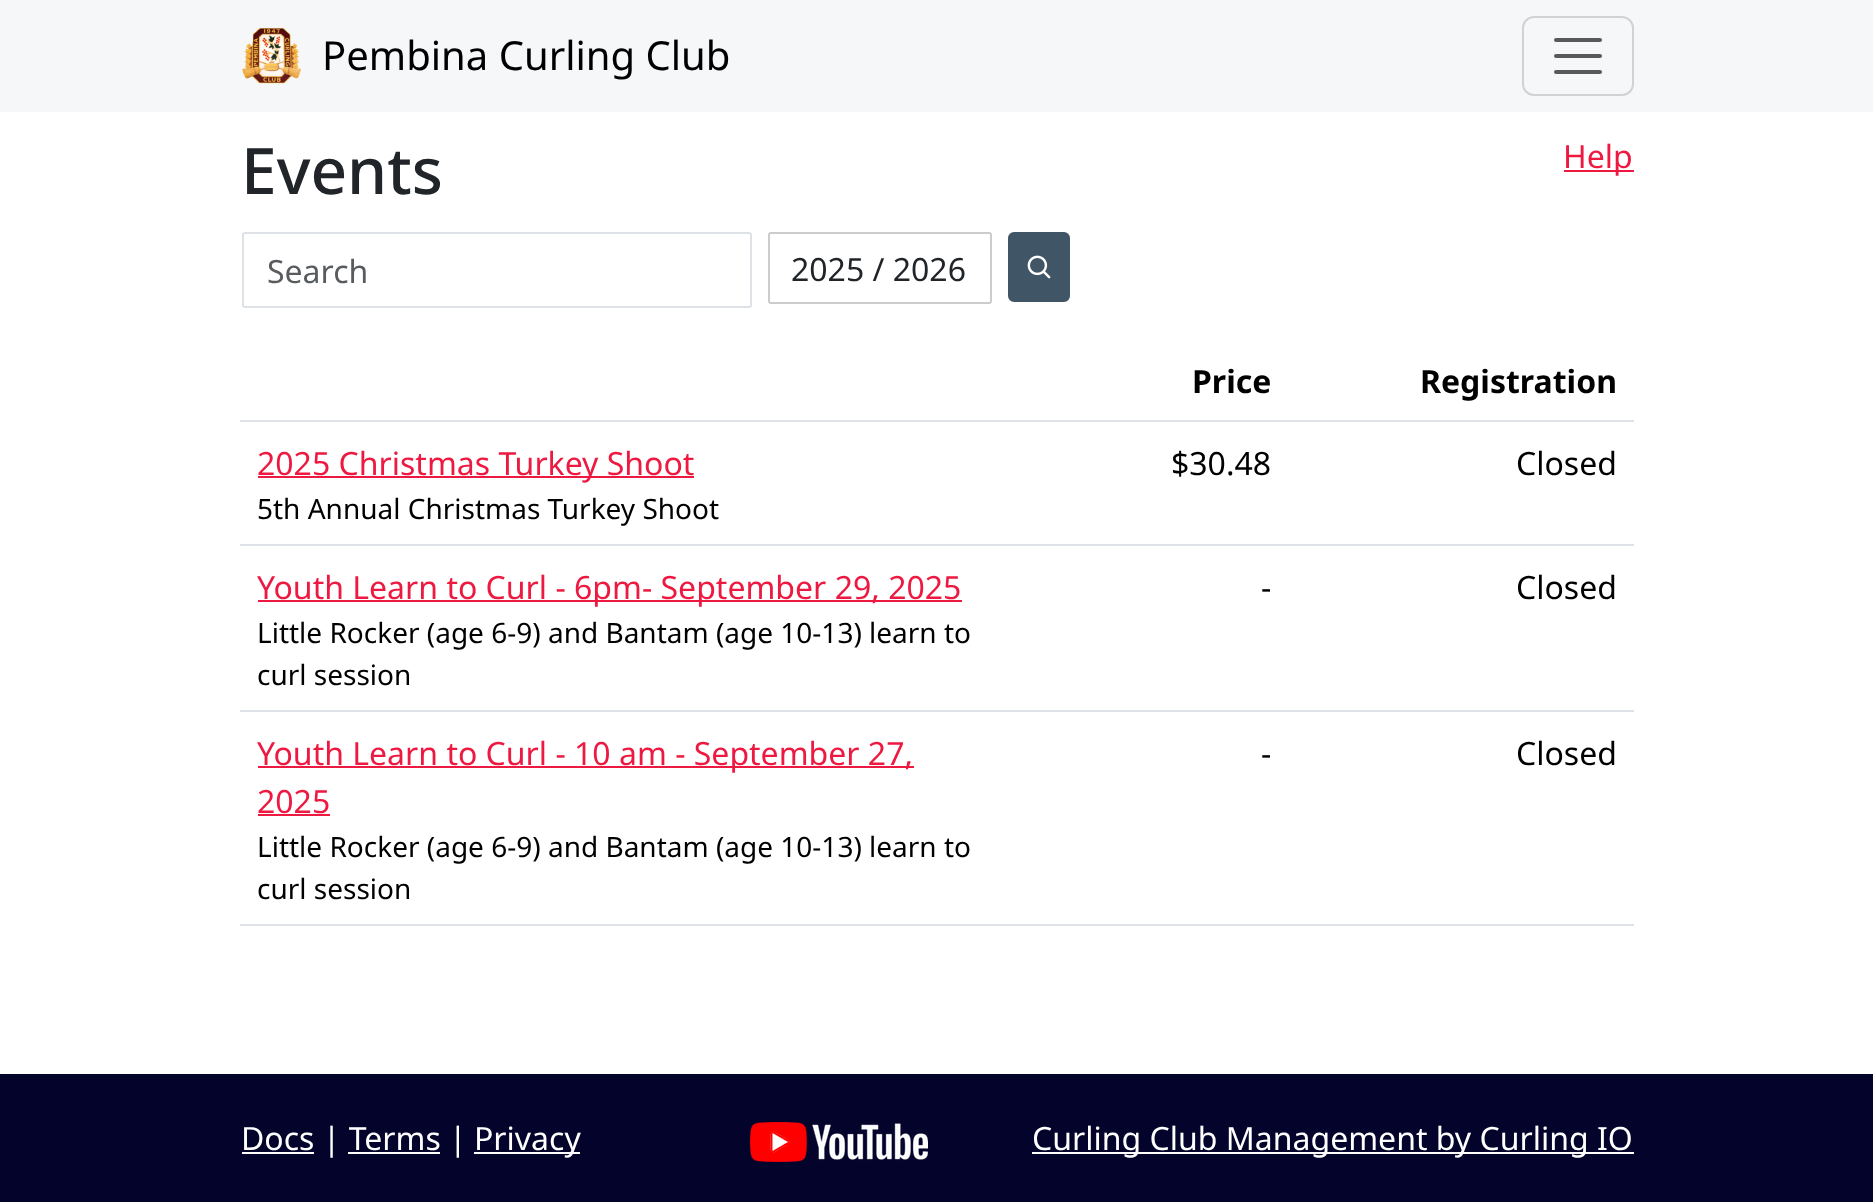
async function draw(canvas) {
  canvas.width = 1873;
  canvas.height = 1202;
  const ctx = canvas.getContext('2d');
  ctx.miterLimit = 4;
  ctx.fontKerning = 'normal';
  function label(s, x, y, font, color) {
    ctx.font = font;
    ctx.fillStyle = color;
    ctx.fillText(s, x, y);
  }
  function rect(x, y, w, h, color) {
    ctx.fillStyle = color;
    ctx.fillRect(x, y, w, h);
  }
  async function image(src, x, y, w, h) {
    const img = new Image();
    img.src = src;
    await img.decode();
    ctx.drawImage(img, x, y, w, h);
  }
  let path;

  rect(0, 0, 1873, 1202, '#fff');
  rect(0, 0, 1873, 112, '#f6f7f9');
  await image('assets/img1.png', 242, 28, 60, 56);
  label('Pembina Curling Club', 322, 70, '40px Noto Sans', '#000');
  ctx.beginPath();
  ctx.roundRect(1523, 17, 110, 78, 11);
  ctx.strokeStyle = '#d1d2d4';
  ctx.lineWidth = 2;
  ctx.stroke();
  path = new Path2D('M1556 40H1600M1556 56H1600M1556 72H1600');
  ctx.strokeStyle = '#565a5d';
  ctx.lineWidth = 4;
  ctx.lineCap = 'round';
  ctx.stroke(path);
  label('Events', 241, 194, '500 64px Noto Sans', '#212529');
  rect(1564, 170, 70, 2, '#ed1941');
  label('Help', 1563, 168, '32px Noto Sans', '#ed1941');
  ctx.beginPath();
  ctx.roundRect(243, 233, 508, 74, 2);
  ctx.strokeStyle = '#dee2e6';
  ctx.lineWidth = 2;
  ctx.stroke();
  label('Search', 267, 283, '32px Noto Sans', '#595c5f');
  ctx.beginPath();
  ctx.roundRect(769, 233, 222, 70, 2);
  ctx.strokeStyle = '#ccc';
  ctx.stroke();
  label('2025 / 2026', 791, 281, '32px Noto Sans', '#212529');
  ctx.fillStyle = '#405566';
  ctx.beginPath();
  ctx.roundRect(1009, 233, 60, 68, 5);
  ctx.fill();
  ctx.strokeStyle = '#405566';
  ctx.stroke();
  await image('assets/img2.png', 1027, 255, 24, 24);
  label('Price', 1192, 393, 'bold 32px Noto Sans', '#000');
  rect(240, 420, 1394, 2, '#dee2e6');
  label('Registration', 1420, 393, 'bold 32px Noto Sans', '#000');
  rect(258, 476, 436, 2, '#ed1941');
  label('2025 Christmas Turkey Shoot', 257, 475, '32px Noto Sans', '#ed1941');
  label('5th Annual Christmas Turkey Shoot', 257, 519, '28px Noto Sans', '#000');
  label('$30.48', 1171, 475, '32px Noto Sans', '#000');
  rect(240, 544, 1394, 2, '#dee2e6');
  label('Closed', 1516, 475, '32px Noto Sans', '#000');
  rect(258, 600, 704, 2, '#ed1941');
  label('Youth Learn to Curl - 6pm- September 29, 2025', 257, 599, '32px Noto Sans', '#ed1941');
  label('Little Rocker (age 6-9) and Bantam (age 10-13) learn to', 257, 643, '28px Noto Sans', '#000');
  label('curl session', 257, 685, '28px Noto Sans', '#000');
  label('-', 1261, 599, '32px Noto Sans', '#000');
  rect(240, 710, 1394, 2, '#dee2e6');
  label('Closed', 1516, 599, '32px Noto Sans', '#000');
  rect(258, 766, 656, 2, '#ed1941');
  label('Youth Learn to Curl - 10 am - September 27,', 257, 765, '32px Noto Sans', '#ed1941');
  label('2025', 257, 813, '32px Noto Sans', '#ed1941');
  rect(258, 814, 72, 2, '#ed1941');
  label('Little Rocker (age 6-9) and Bantam (age 10-13) learn to', 257, 857, '28px Noto Sans', '#000');
  label('curl session', 257, 899, '28px Noto Sans', '#000');
  label('-', 1261, 765, '32px Noto Sans', '#000');
  rect(240, 924, 1394, 2, '#dee2e6');
  label('Closed', 1516, 765, '32px Noto Sans', '#000');
  rect(0, 1074, 1873, 128, '#03032c');
  rect(242, 1152, 72, 2, '#fff');
  label('Docs | Terms |', 241, 1150, '32px Noto Sans', '#fff');
  rect(474, 1152, 106, 2, '#fff');
  label('Privacy', 474, 1150, '32px Noto Sans', '#fff');
  await image('assets/img3.png', 750, 1122, 178, 40);
  rect(1032, 1152, 602, 2, '#fff');
  label('Curling Club Management by Curling IO', 1032, 1150, '32px Noto Sans', '#fff');
  rect(348, 1152, 92, 2, '#fff');
}

draw(document.querySelector('canvas'));
